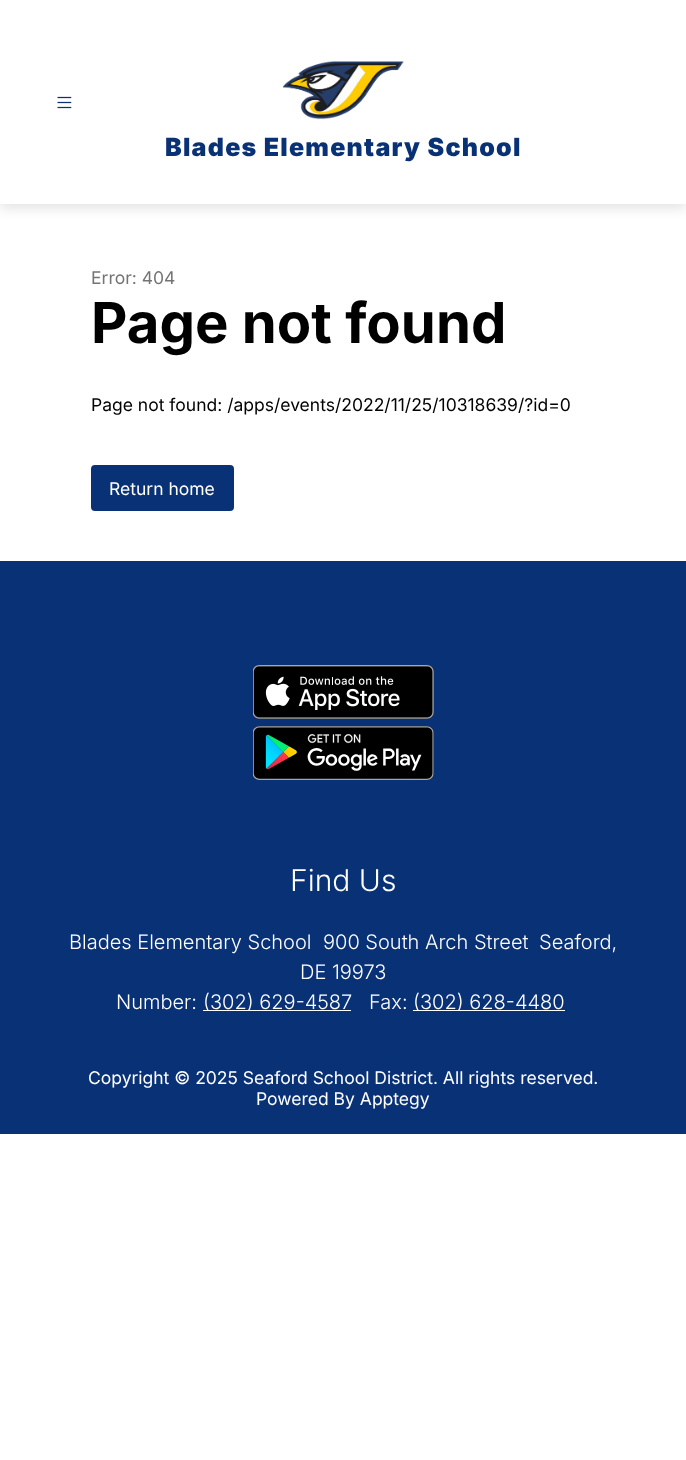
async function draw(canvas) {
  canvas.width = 686;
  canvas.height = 1460;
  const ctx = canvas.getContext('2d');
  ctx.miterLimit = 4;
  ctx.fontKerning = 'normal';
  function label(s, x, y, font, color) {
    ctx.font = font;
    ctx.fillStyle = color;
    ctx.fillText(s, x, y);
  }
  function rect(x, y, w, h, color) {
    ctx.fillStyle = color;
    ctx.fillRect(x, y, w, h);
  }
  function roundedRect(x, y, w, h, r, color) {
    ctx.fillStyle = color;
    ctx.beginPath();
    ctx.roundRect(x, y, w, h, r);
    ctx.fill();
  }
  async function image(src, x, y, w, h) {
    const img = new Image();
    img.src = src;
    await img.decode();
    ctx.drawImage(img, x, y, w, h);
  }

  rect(0, 0, 686, 1460, '#fff');
  ctx.fillStyle = '#0000001a';
  ctx.filter = 'blur(6px)';
  ctx.beginPath();
  ctx.rect(0, 5, 686, 204);
  ctx.fill();
  ctx.filter = 'none';
  rect(0, 0, 686, 204, '#fff');
  await image('assets/img1.png', 57, 96, 15, 13);
  await image('assets/img2.png', 282, 61, 122, 59);
  ctx.letterSpacing = '1.25px';
  label('Blades Elementary School', 165, 156, '900 25px Inter', '#093176');
  ctx.letterSpacing = '0px';
  label('Error: 404', 91, 284, '17.5px Inter', '#747474');
  label('Page not found', 91, 343, 'bold 56.25px Inter', '#000');
  label('Page not found: /apps/events/2022/11/25/10318639/?id=0', 91, 411, '17.5px Inter', '#000');
  roundedRect(91, 465, 143, 46, 4, '#093176');
  label('Return home', 109, 495, '17.5px Inter', '#fff');
  rect(0, 561, 686, 573, '#093176');
  await image('assets/img3.png', 253, 665, 181, 54);
  await image('assets/img4.png', 253, 726, 181, 54);
  label('Find Us', 290, 891, '300 30px Inter', '#fff');
  label('Blades Elementary School', 69, 949, '300 20px Inter', '#fff');
  label('900 South Arch Street', 323, 949, '300 20px Inter', '#fff');
  label('Seaford,', 539, 949, '300 20px Inter', '#fff');
  label('DE 19973', 300, 979, '300 20px Inter', '#fff');
  label('Number:', 116, 1009, '300 20px Inter', '#fff');
  rect(203, 1010, 148, 1, '#fff');
  label('(302) 629-4587', 203, 1009, '300 20px Inter', '#fff');
  label('Fax:', 369, 1009, '300 20px Inter', '#fff');
  rect(413, 1010, 152, 1, '#fff');
  label('(302) 628-4480', 413, 1009, '300 20px Inter', '#fff');
  label('Copyright © 2025 Seaford School District. All rights reserved.', 88, 1084, '17.5px Inter', '#fff');
  label('Powered By Apptegy', 256, 1105, '17.5px Inter', '#fff');
}

draw(document.querySelector('canvas'));
